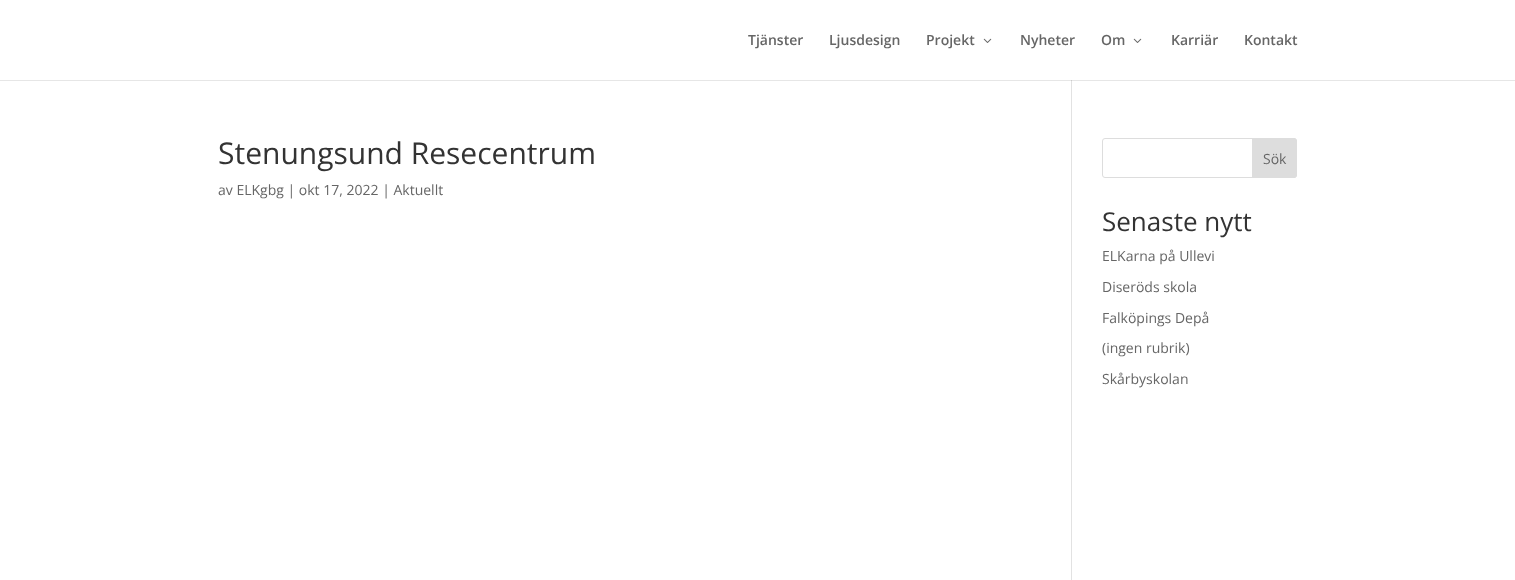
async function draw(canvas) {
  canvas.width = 1515;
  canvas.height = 580;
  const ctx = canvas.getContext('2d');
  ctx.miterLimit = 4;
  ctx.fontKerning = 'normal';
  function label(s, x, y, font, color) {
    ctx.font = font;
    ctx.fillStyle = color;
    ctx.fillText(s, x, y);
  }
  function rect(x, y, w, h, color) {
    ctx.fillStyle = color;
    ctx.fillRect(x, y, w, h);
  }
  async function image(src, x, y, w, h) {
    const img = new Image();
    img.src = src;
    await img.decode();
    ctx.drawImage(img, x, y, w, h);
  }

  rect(0, 0, 1515, 580, '#fff');
  rect(0, 80, 1515, 1, '#e6e6e6');
  label('Tjänster', 748, 45, '600 14px Open Sans', '#666');
  label('Ljusdesign', 829, 45, '600 14px Open Sans', '#666');
  label('Projekt', 926, 45, '600 14px Open Sans', '#666');
  await image('assets/img1.png', 983, 38, 9, 5);
  label('Nyheter', 1020, 45, '600 14px Open Sans', '#666');
  label('Om', 1101, 45, '600 14px Open Sans', '#666');
  await image('assets/img1.png', 1133, 38, 9, 5);
  label('Karriär', 1171, 45, '600 14px Open Sans', '#666');
  label('Kontakt', 1244, 45, '600 14px Open Sans', '#666');
  rect(1071, 80, 1, 500, '#e2e2e2');
  rect(1071, 80, 1, 1, '#cbcbcb');
  label('Stenungsund Resecentrum', 218, 164, '30px Open Sans', '#333');
  label('av ELKgbg | okt 17, 2022 | Aktuellt', 218, 195, '14px Open Sans', '#666');
  ctx.beginPath();
  ctx.roundRect(1102.5, 138.5, 194, 39, 2.5);
  ctx.strokeStyle = '#ddd';
  ctx.stroke();
  ctx.fillStyle = '#ddd';
  ctx.beginPath();
  ctx.roundRect(1252.5, 138.5, 44, 39, [0, 2.5, 2.5, 0]);
  ctx.fill();
  ctx.stroke();
  label('Sök', 1263, 164, '14px Open Sans', '#666');
  label('Senaste nytt', 1102, 231, '26px Open Sans', '#333');
  label('ELKarna på Ullevi', 1102, 261, '14px Open Sans', '#666');
  label('Diseröds skola', 1102, 292, '14px Open Sans', '#666');
  label('Falköpings Depå', 1102, 323, '14px Open Sans', '#666');
  label('(ingen rubrik)', 1102, 353, '14px Open Sans', '#666');
  label('Skårbyskolan', 1102, 384, '14px Open Sans', '#666');
}

draw(document.querySelector('canvas'));
